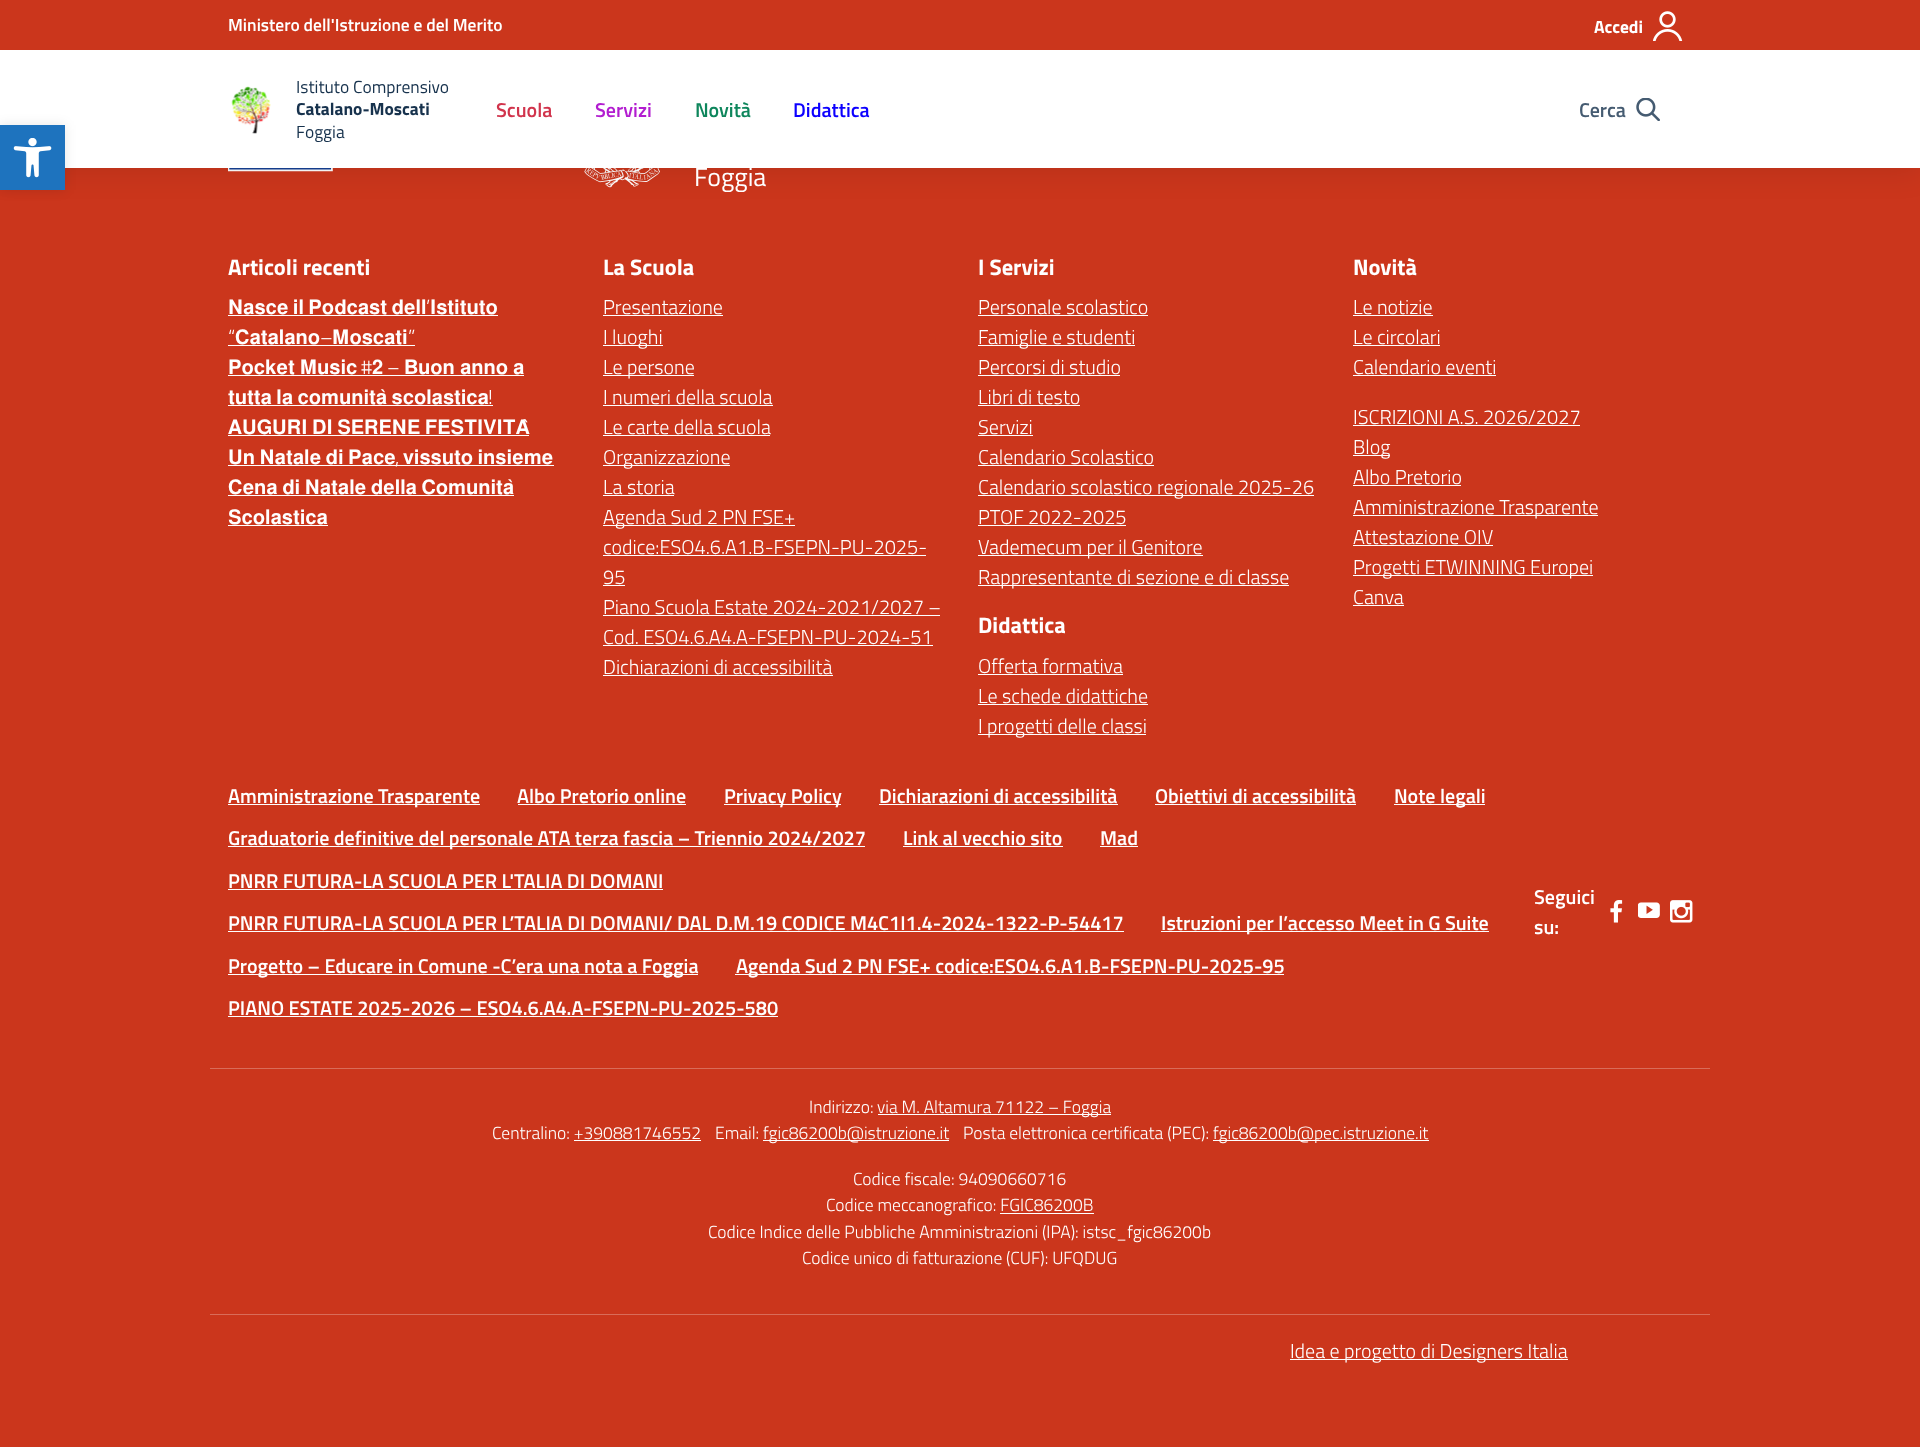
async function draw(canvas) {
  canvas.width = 1920;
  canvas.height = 1447;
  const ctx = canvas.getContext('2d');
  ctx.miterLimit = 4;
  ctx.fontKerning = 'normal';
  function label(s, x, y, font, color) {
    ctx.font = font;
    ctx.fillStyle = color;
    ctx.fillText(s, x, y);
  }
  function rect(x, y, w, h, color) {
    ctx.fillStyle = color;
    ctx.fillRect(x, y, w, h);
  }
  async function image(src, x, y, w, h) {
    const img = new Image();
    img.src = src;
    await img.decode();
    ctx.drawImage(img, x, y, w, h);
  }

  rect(0, 0, 1920, 1447, '#cb361c');
  await image('assets/img5.png', 228, 168, 105, 4);
  await image('assets/img6.png', 584, 168, 76, 20);
  ctx.fillStyle = '#0000001a';
  ctx.filter = 'blur(15.5px)';
  ctx.beginPath();
  ctx.rect(0, 3, 1920, 167);
  ctx.fill();
  ctx.filter = 'none';
  rect(0, 50, 1920, 118, '#fff');
  ctx.fillStyle = '#0000001a';
  ctx.filter = 'blur(6px)';
  ctx.beginPath();
  ctx.rect(0, 125, 65, 65);
  ctx.fill();
  ctx.filter = 'none';
  rect(0, 125, 65, 65, '#1e73be');
  await image('assets/img1.png', 13, 138, 39, 40);
  rect(0, 0, 1920, 50, '#cb361c');
  label('Ministero dell\'Istruzione e del Merito', 228, 31, '600 17.5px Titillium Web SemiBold', '#fff');
  label('Accedi', 1594, 33, 'bold 17.5px Titillium Web', '#fff');
  await image('assets/img2.png', 1653, 11, 30, 30);
  await image('assets/img3.png', 231, 86, 40, 48);
  label('Istituto Comprensivo', 296, 93, '17.5px Titillium Web', '#17324d');
  label('Catalano-Moscati', 296, 115, 'bold 17.5px Titillium Web', '#17324d');
  label('Foggia', 296, 138, '17.5px Titillium Web', '#17324d');
  label('Scuola', 496, 117, '600 20px Titillium Web SemiBold', '#d1344c');
  label('Servizi', 595, 117, '600 20px Titillium Web SemiBold', '#b21dd0');
  label('Novità', 695, 117, '600 20px Titillium Web SemiBold', '#0e865c');
  label('Didattica', 793, 117, '600 20px Titillium Web SemiBold', '#0d00ff');
  label('Cerca', 1579, 117, '600 20px Titillium Web SemiBold', '#455b71');
  await image('assets/img4.png', 1636, 98, 24, 23);
  label('Foggia', 694, 186, '26px Titillium Web', '#fff');
  label('Articoli recenti', 228, 275, 'bold 22.5px Titillium Web', '#fff');
  ctx.wordSpacing = '-0.5px';
  label('𝐍𝐚𝐬𝐜𝐞 𝐢𝐥 𝐏𝐨𝐝𝐜𝐚𝐬𝐭 𝐝𝐞𝐥𝐥', 228, 314, '20px FreeSans', '#fff');
  rect(228, 315, 270, 1, '#fff');
  ctx.wordSpacing = '0px';
  label('’', 426, 314, '300 20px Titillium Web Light', '#fff');
  label('𝐈𝐬𝐭𝐢𝐭𝐮𝐭𝐨', 430, 314, '20px FreeSans', '#fff');
  label('“', 228, 344, '300 20px Titillium Web Light', '#fff');
  label('𝐂𝐚𝐭𝐚𝐥𝐚𝐧𝐨', 235, 344, '20px FreeSans', '#fff');
  label('𝐌𝐨𝐬𝐜𝐚𝐭𝐢', 332, 344, '20px FreeSans', '#fff');
  label('”', 408, 344, '300 20px Titillium Web Light', '#fff');
  label('–', 320, 344, '300 20px Titillium Web Light', '#fff');
  rect(228, 345, 187, 1, '#fff');
  label('𝐏𝐨𝐜𝐤𝐞𝐭 𝐌𝐮𝐬𝐢𝐜', 228, 374, '20px FreeSans', '#fff');
  label('#', 361, 374, '300 20px Titillium Web Light', '#fff');
  label('𝟐', 372, 374, '20px FreeSans', '#fff');
  label('–', 387, 374, '300 20px Titillium Web Light', '#fff');
  rect(228, 375, 296, 1, '#fff');
  label('𝐁𝐮𝐨𝐧 𝐚𝐧𝐧𝐨 𝐚', 404, 374, '20px FreeSans', '#fff');
  ctx.wordSpacing = '-0.5px';
  label('𝐭𝐮𝐭𝐭𝐚 𝐥𝐚 𝐜𝐨𝐦𝐮𝐧𝐢𝐭𝐚̀ 𝐬𝐜𝐨𝐥𝐚𝐬𝐭𝐢𝐜𝐚', 228, 404, '20px FreeSans', '#fff');
  rect(228, 405, 265, 1, '#fff');
  ctx.wordSpacing = '0px';
  label('!', 488, 404, '300 20px Titillium Web Light', '#fff');
  ctx.wordSpacing = '-0.5px';
  label('𝐀𝐔𝐆𝐔𝐑𝐈 𝐃𝐈 𝐒𝐄𝐑𝐄𝐍𝐄 𝐅𝐄𝐒𝐓𝐈𝐕𝐈𝐓𝐀̀', 228, 434, '20px FreeSans', '#fff');
  rect(228, 435, 301, 1, '#fff');
  label('𝐔𝐧 𝐍𝐚𝐭𝐚𝐥𝐞 𝐝𝐢 𝐏𝐚𝐜𝐞', 228, 464, '20px FreeSans', '#fff');
  rect(228, 465, 326, 1, '#fff');
  ctx.wordSpacing = '0px';
  label(',', 395, 464, '300 20px Titillium Web Light', '#fff');
  ctx.wordSpacing = '-0.5px';
  label('𝐯𝐢𝐬𝐬𝐮𝐭𝐨 𝐢𝐧𝐬𝐢𝐞𝐦𝐞', 403, 464, '20px FreeSans', '#fff');
  label('𝐂𝐞𝐧𝐚 𝐝𝐢 𝐍𝐚𝐭𝐚𝐥𝐞 𝐝𝐞𝐥𝐥𝐚 𝐂𝐨𝐦𝐮𝐧𝐢𝐭𝐚̀', 228, 494, '20px FreeSans', '#fff');
  rect(228, 495, 286, 1, '#fff');
  ctx.wordSpacing = '0px';
  label('𝐒𝐜𝐨𝐥𝐚𝐬𝐭𝐢𝐜𝐚', 228, 524, '20px FreeSans', '#fff');
  rect(228, 525, 100, 1, '#fff');
  label('La Scuola', 603, 275, 'bold 22.5px Titillium Web', '#fff');
  label('Presentazione', 603, 314, '300 20px Titillium Web Light', '#fff');
  rect(603, 315, 120, 1, '#fff');
  rect(603, 345, 60, 1, '#fff');
  label('I luoghi', 603, 344, '300 20px Titillium Web Light', '#fff');
  rect(603, 375, 91, 1, '#fff');
  label('Le persone', 603, 374, '300 20px Titillium Web Light', '#fff');
  label('I numeri della scuola', 603, 404, '300 20px Titillium Web Light', '#fff');
  rect(603, 405, 170, 1, '#fff');
  label('Le carte della scuola', 603, 434, '300 20px Titillium Web Light', '#fff');
  rect(603, 435, 167, 1, '#fff');
  rect(603, 465, 127, 1, '#fff');
  label('Organizzazione', 603, 464, '300 20px Titillium Web Light', '#fff');
  label('La storia', 603, 494, '300 20px Titillium Web Light', '#fff');
  rect(603, 495, 71, 1, '#fff');
  rect(603, 525, 192, 1, '#fff');
  label('Agenda Sud 2 PN FSE+', 603, 524, '300 20px Titillium Web Light', '#fff');
  label('codice:ESO4.6.A1.B-FSEPN-PU-2025-', 603, 554, '300 20px Titillium Web Light', '#fff');
  rect(603, 555, 323, 1, '#fff');
  label('95', 603, 584, '300 20px Titillium Web Light', '#fff');
  rect(603, 585, 22, 1, '#fff');
  label('Piano Scuola Estate 2024-2021/2027 –', 603, 614, '300 20px Titillium Web Light', '#fff');
  rect(603, 615, 337, 1, '#fff');
  label('Cod. ESO4.6.A4.A-FSEPN-PU-2024-51', 603, 644, '300 20px Titillium Web Light', '#fff');
  rect(603, 645, 330, 1, '#fff');
  label('Dichiarazioni di accessibilità', 603, 674, '300 20px Titillium Web Light', '#fff');
  rect(603, 675, 230, 1, '#fff');
  label('I Servizi', 978, 275, 'bold 22.5px Titillium Web', '#fff');
  label('Personale scolastico', 978, 314, '300 20px Titillium Web Light', '#fff');
  rect(978, 315, 170, 1, '#fff');
  rect(978, 345, 157, 1, '#fff');
  label('Famiglie e studenti', 978, 344, '300 20px Titillium Web Light', '#fff');
  label('Percorsi di studio', 978, 374, '300 20px Titillium Web Light', '#fff');
  rect(978, 375, 142, 1, '#fff');
  label('Libri di testo', 978, 404, '300 20px Titillium Web Light', '#fff');
  rect(978, 405, 102, 1, '#fff');
  label('Servizi', 978, 434, '300 20px Titillium Web Light', '#fff');
  rect(978, 435, 55, 1, '#fff');
  label('Calendario Scolastico', 978, 464, '300 20px Titillium Web Light', '#fff');
  rect(978, 465, 176, 1, '#fff');
  rect(978, 495, 336, 1, '#fff');
  label('Calendario scolastico regionale 2025-26', 978, 494, '300 20px Titillium Web Light', '#fff');
  label('PTOF 2022-2025', 978, 524, '300 20px Titillium Web Light', '#fff');
  rect(978, 525, 148, 1, '#fff');
  rect(978, 555, 225, 1, '#fff');
  label('Vademecum per il Genitore', 978, 554, '300 20px Titillium Web Light', '#fff');
  rect(978, 585, 311, 1, '#fff');
  label('Rappresentante di sezione e di classe', 978, 584, '300 20px Titillium Web Light', '#fff');
  label('Didattica', 978, 633, 'bold 22.5px Titillium Web', '#fff');
  label('Offerta formativa', 978, 673, '300 20px Titillium Web Light', '#fff');
  rect(978, 674, 145, 1, '#fff');
  label('Le schede didattiche', 978, 703, '300 20px Titillium Web Light', '#fff');
  rect(978, 704, 170, 1, '#fff');
  rect(978, 734, 168, 1, '#fff');
  label('I progetti delle classi', 978, 733, '300 20px Titillium Web Light', '#fff');
  label('Novità', 1353, 275, 'bold 22.5px Titillium Web', '#fff');
  label('Le notizie', 1353, 314, '300 20px Titillium Web Light', '#fff');
  rect(1353, 315, 80, 1, '#fff');
  label('Le circolari', 1353, 344, '300 20px Titillium Web Light', '#fff');
  rect(1353, 345, 87, 1, '#fff');
  label('Calendario eventi', 1353, 374, '300 20px Titillium Web Light', '#fff');
  rect(1353, 375, 143, 1, '#fff');
  label('ISCRIZIONI A.S. 2026/2027', 1353, 424, '300 20px Titillium Web Light', '#fff');
  rect(1353, 425, 227, 1, '#fff');
  rect(1353, 455, 37, 1, '#fff');
  label('Blog', 1353, 454, '300 20px Titillium Web Light', '#fff');
  label('Albo Pretorio', 1353, 484, '300 20px Titillium Web Light', '#fff');
  rect(1353, 485, 108, 1, '#fff');
  rect(1353, 515, 245, 1, '#fff');
  label('Amministrazione Trasparente', 1353, 514, '300 20px Titillium Web Light', '#fff');
  label('Attestazione OIV', 1353, 544, '300 20px Titillium Web Light', '#fff');
  rect(1353, 545, 140, 1, '#fff');
  rect(1353, 575, 240, 1, '#fff');
  label('Progetti ETWINNING Europei', 1353, 574, '300 20px Titillium Web Light', '#fff');
  label('Canva', 1353, 604, '300 20px Titillium Web Light', '#fff');
  rect(1353, 605, 51, 1, '#fff');
  rect(228, 804, 252, 1, '#fff');
  label('Amministrazione Trasparente', 228, 803, '600 20px Titillium Web SemiBold', '#fff');
  label('Albo Pretorio online', 517, 803, '600 20px Titillium Web SemiBold', '#fff');
  rect(518, 804, 168, 1, '#fff');
  rect(724, 804, 117, 1, '#fff');
  label('Privacy Policy', 724, 803, '600 20px Titillium Web SemiBold', '#fff');
  label('Dichiarazioni di accessibilità', 879, 803, '600 20px Titillium Web SemiBold', '#fff');
  rect(879, 804, 239, 1, '#fff');
  label('Obiettivi di accessibilità', 1155, 803, '600 20px Titillium Web SemiBold', '#fff');
  rect(1155, 804, 201, 1, '#fff');
  rect(1394, 804, 91, 1, '#fff');
  label('Note legali', 1394, 803, '600 20px Titillium Web SemiBold', '#fff');
  rect(228, 846, 637, 1, '#fff');
  label('Graduatorie definitive del personale ATA terza fascia – Triennio 2024/2027', 228, 845, '600 20px Titillium Web SemiBold', '#fff');
  label('Link al vecchio sito', 903, 845, '600 20px Titillium Web SemiBold', '#fff');
  rect(903, 846, 160, 1, '#fff');
  label('Mad', 1100, 845, '600 20px Titillium Web SemiBold', '#fff');
  rect(1100, 846, 38, 1, '#fff');
  label('PNRR FUTURA-LA SCUOLA PER L\'TALIA DI DOMANI', 228, 888, '600 20px Titillium Web SemiBold', '#fff');
  rect(228, 889, 435, 1, '#fff');
  label('PNRR FUTURA-LA SCUOLA PER L’TALIA DI DOMANI/ DAL D.M.19 CODICE M4C1I1.4-2024-1322-P-54417', 228, 930, '600 20px Titillium Web SemiBold', '#fff');
  rect(228, 931, 896, 1, '#fff');
  rect(1161, 931, 328, 1, '#fff');
  label('Istruzioni per l’accesso Meet in G Suite', 1161, 930, '600 20px Titillium Web SemiBold', '#fff');
  rect(228, 974, 470, 1, '#fff');
  label('Progetto – Educare in Comune -C’era una nota a Foggia', 228, 973, '600 20px Titillium Web SemiBold', '#fff');
  rect(735, 974, 549, 1, '#fff');
  label('Agenda Sud 2 PN FSE+ codice:ESO4.6.A1.B-FSEPN-PU-2025-95', 736, 973, '600 20px Titillium Web SemiBold', '#fff');
  label('PIANO ESTATE 2025-2026 – ESO4.6.A4.A-FSEPN-PU-2025-580', 228, 1015, '600 20px Titillium Web SemiBold', '#fff');
  rect(228, 1016, 550, 1, '#fff');
  label('Seguici', 1534, 904, '600 20px Titillium Web SemiBold', '#fff');
  label('su:', 1534, 934, '600 20px Titillium Web SemiBold', '#fff');
  await image('assets/img7.png', 1610, 900, 13, 23);
  await image('assets/img8.png', 1638, 902, 22, 16);
  await image('assets/img9.png', 1670, 900, 23, 23);
  rect(210, 1068, 1500, 1, '#d96c59');
  label('Indirizzo:', 809, 1113, '300 17.5px Titillium Web Light', '#fff');
  rect(878, 1114, 233, 1, '#fff');
  label('via M. Altamura 71122 – Foggia', 877, 1113, '300 17.5px Titillium Web Light', '#fff');
  label('Centralino: +390881746552', 492, 1139, '300 17.5px Titillium Web Light', '#fff');
  rect(574, 1140, 127, 1, '#fff');
  label('Email:', 715, 1139, '300 17.5px Titillium Web Light', '#fff');
  rect(763, 1140, 186, 1, '#fff');
  label('fgic86200b@istruzione.it', 763, 1139, '300 17.5px Titillium Web Light', '#fff');
  label('Posta elettronica certificata (PEC):', 963, 1139, '300 17.5px Titillium Web Light', '#fff');
  rect(1213, 1140, 216, 1, '#fff');
  label('fgic86200b@pec.istruzione.it', 1213, 1139, '300 17.5px Titillium Web Light', '#fff');
  label('Codice fiscale: 94090660716', 853, 1185, '300 17.5px Titillium Web Light', '#fff');
  label('Codice meccanografico: FGIC86200B', 826, 1211, '300 17.5px Titillium Web Light', '#fff');
  rect(1000, 1213, 94, 1, '#fff');
  label('Codice Indice delle Pubbliche Amministrazioni (IPA): istsc_fgic86200b', 708, 1238, '300 17.5px Titillium Web Light', '#fff');
  label('Codice unico di fatturazione (CUF): UFQDUG', 802, 1264, '300 17.5px Titillium Web Light', '#fff');
  rect(210, 1314, 1500, 1, '#d96c59');
  rect(1290, 1359, 278, 1, '#fff');
  label('Idea e progetto di Designers Italia', 1290, 1358, '300 20px Titillium Web Light', '#fff');
}

draw(document.querySelector('canvas'));
